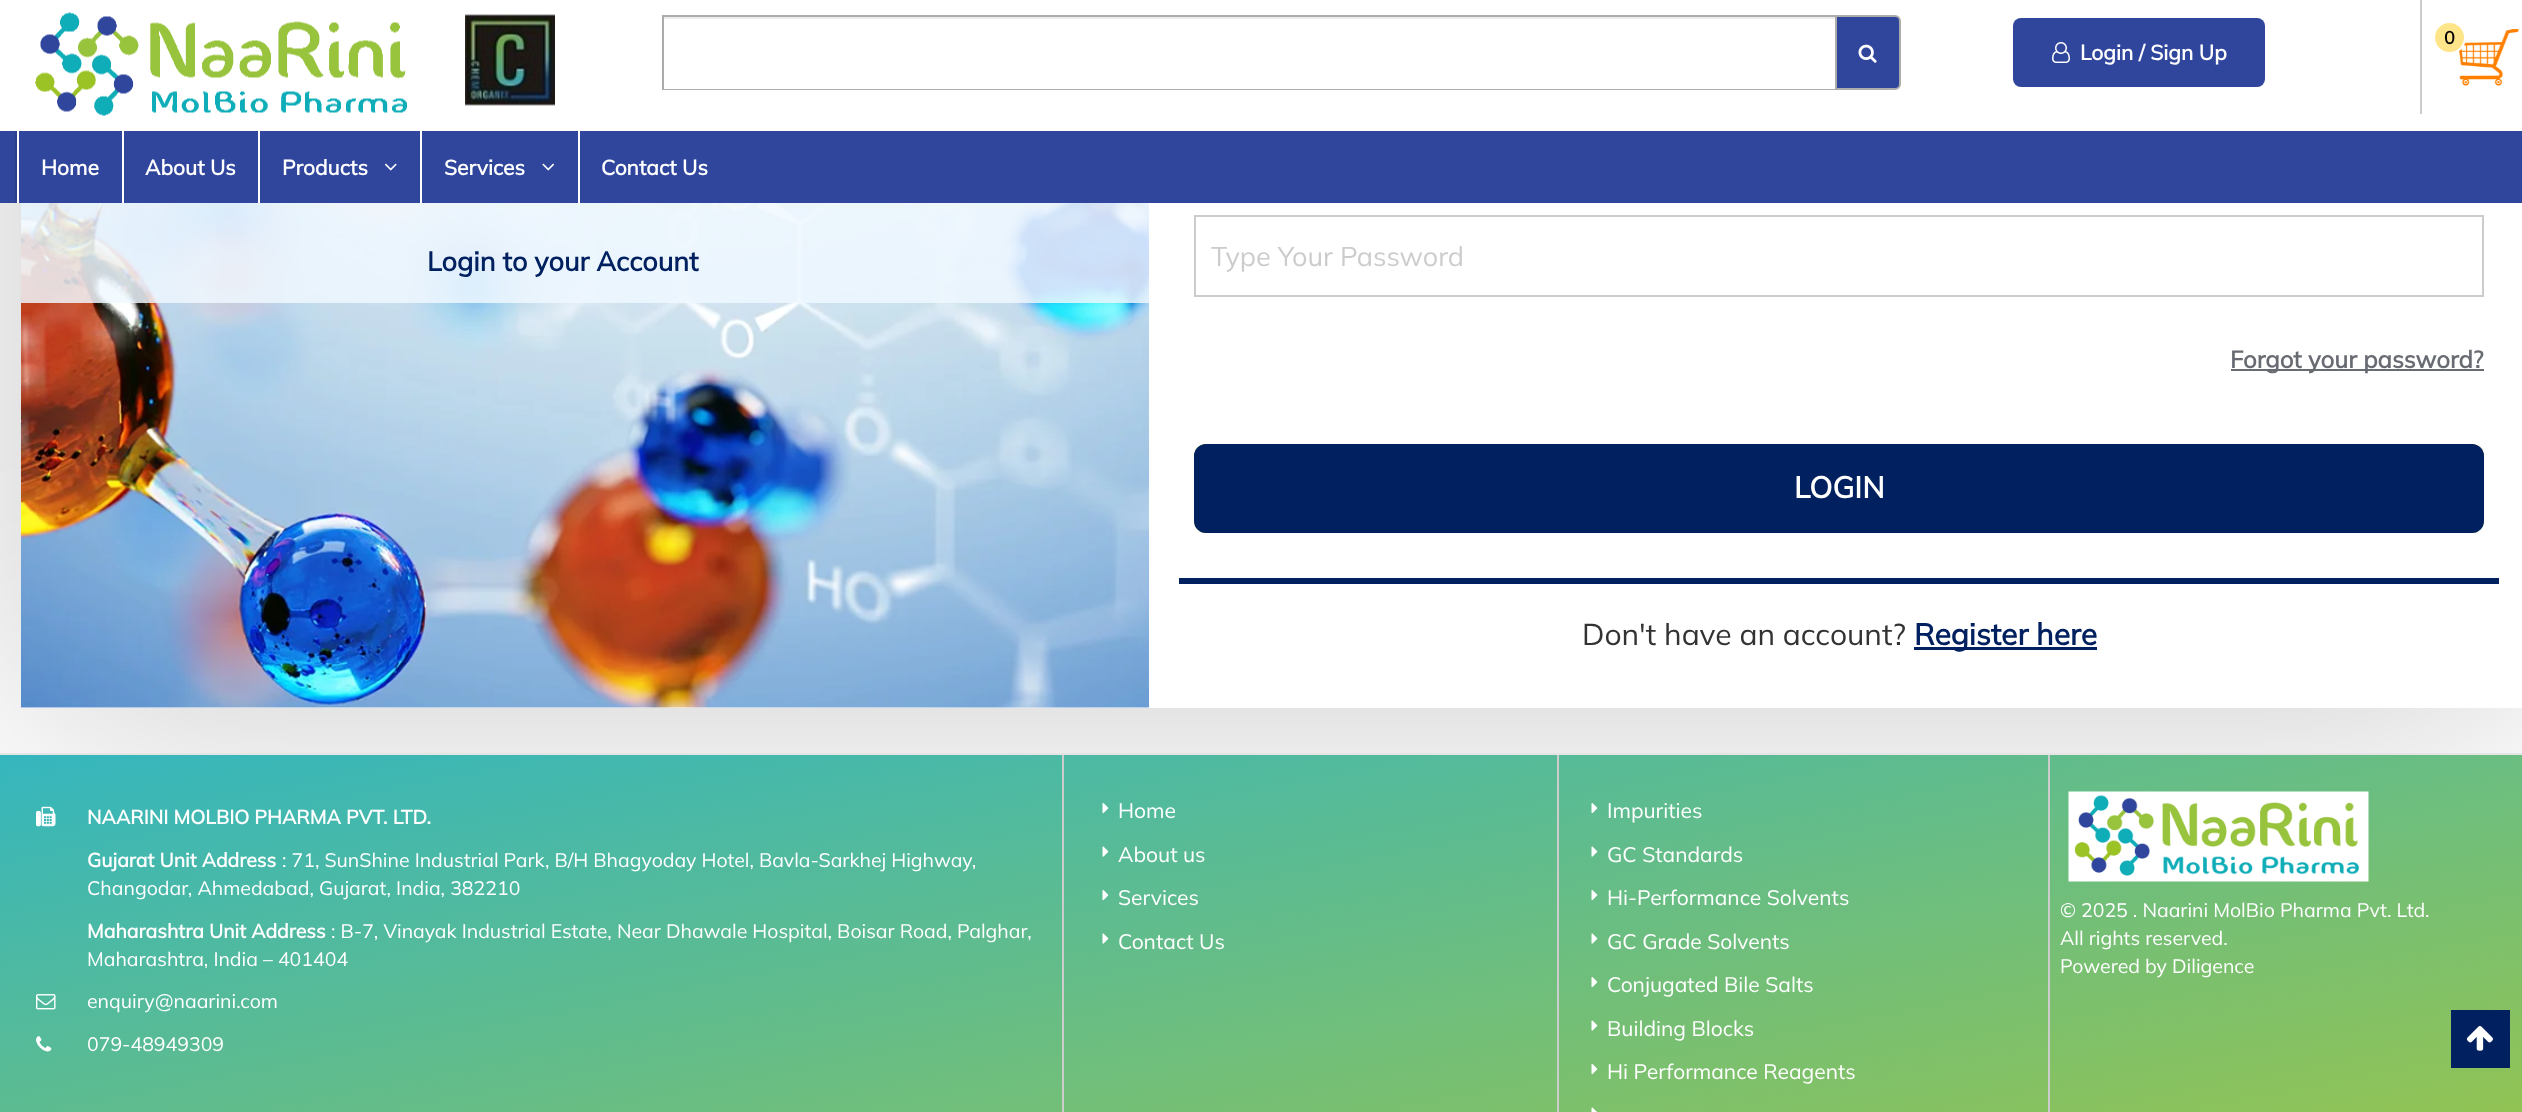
async function draw(canvas) {
  canvas.width = 2522;
  canvas.height = 1112;
  const ctx = canvas.getContext('2d');
  ctx.miterLimit = 4;
  ctx.fontKerning = 'normal';
  function label(s, x, y, font, color) {
    ctx.font = font;
    ctx.fillStyle = color;
    ctx.fillText(s, x, y);
  }
  function rect(x, y, w, h, color) {
    ctx.fillStyle = color;
    ctx.fillRect(x, y, w, h);
  }
  function roundedRect(x, y, w, h, r, color) {
    ctx.fillStyle = color;
    ctx.beginPath();
    ctx.roundRect(x, y, w, h, r);
    ctx.fill();
  }
  async function image(src, x, y, w, h) {
    const img = new Image();
    img.src = src;
    await img.decode();
    ctx.drawImage(img, x, y, w, h);
  }
  let gradient, path;

  rect(0, 0, 2522, 1112, '#fff');
  ctx.save();
  path = new Path2D('M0 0H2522V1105H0ZM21-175H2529V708H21Z');
  ctx.clip(path, 'evenodd');
  ctx.fillStyle = '#00000033';
  ctx.filter = 'blur(129px)';
  ctx.beginPath();
  ctx.rect(12, -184, 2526, 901);
  ctx.fill();
  ctx.filter = 'none';
  ctx.restore();
  rect(0, 0, 21, 131, '#fff');
  await image('assets/img1.png', 35, 12, 372, 104);
  await image('assets/img2.png', 465, 14, 90, 92);
  rect(663, 17, 1172, 2, '#ececec');
  rect(662, 15, 1173, 2, '#acacac');
  rect(662, 89, 1173, 1, '#acacac');
  rect(662, 15, 2, 75, '#acacac');
  ctx.fillStyle = '#30469d';
  ctx.beginPath();
  ctx.roundRect(1836, 16, 64, 73, [0, 5, 5, 0]);
  ctx.fill();
  ctx.strokeStyle = '#acacac';
  ctx.lineWidth = 2;
  ctx.stroke();
  await image('assets/img3.png', 1858, 44, 19, 19);
  rect(2420, 0, 2, 114, '#ccc');
  await image('assets/img4.png', 2459, 29, 60, 57);
  ctx.fillStyle = '#ffe589';
  ctx.beginPath();
  ctx.arc(2449.5, 37.5, 15.5, 0, 2 * Math.PI);
  ctx.fill();
  ctx.strokeStyle = '#fff';
  ctx.stroke();
  label('0', 2444, 44, 'bold 18px Mulish', '#000');
  roundedRect(2013, 18, 252, 69, 8, '#30469d');
  await image('assets/img5.png', 2052, 42, 18, 21);
  label('Login / Sign Up', 2080, 60, 'bold 21px Mulish', '#fff');
  rect(0, 131, 2522, 72, '#30469d');
  rect(15, 131, 2, 72, '#2b3f8d');
  rect(17, 131, 2, 72, '#fff');
  label('Home', 41, 175, 'bold 21px Mulish', '#fff');
  rect(122, 131, 2, 72, '#fff');
  label('About Us', 145, 175, 'bold 21px Mulish', '#fff');
  rect(258, 131, 2, 72, '#fff');
  label('Products', 282, 175, 'bold 21px Mulish', '#fff');
  await image('assets/img6.png', 384, 163, 13, 8);
  rect(420, 131, 2, 72, '#fff');
  label('Services', 444, 175, 'bold 21px Mulish', '#fff');
  await image('assets/img7.png', 542, 163, 13, 8);
  rect(578, 131, 2, 72, '#fff');
  label('Contact Us', 601, 175, 'bold 21px Mulish', '#fff');
  await image('assets/img8.png', 21, 203, 1128, 505);
  rect(21, 203, 1128, 100, '#f0f8ffd6');
  label('Login to your Account', 427, 271, 'bold 27px Mulish', '#002060');
  ctx.strokeStyle = '#ccc';
  ctx.strokeRect(1195, 216, 1288, 80);
  label('Type Your Password', 1211, 266, '27px Mulish', '#ccc');
  rect(2231, 369, 253, 2, '#686b72');
  label('Forgot your password?', 2230, 368, 'bold 24px Mulish', '#686b72');
  roundedRect(1194, 444, 1290, 89, 12, '#9fc545');
  ctx.fillStyle = '#002060';
  ctx.beginPath();
  ctx.roundRect(1195, 445, 1288, 87, 11);
  ctx.fill();
  ctx.strokeStyle = '#002060';
  ctx.stroke();
  label('LOGIN', 1794, 498, 'bold 30px Mulish', '#fff');
  rect(1179, 578, 1320, 6, '#002060');
  label('Don\'t have an account?', 1582, 645, '30px Mulish', '#333');
  rect(1914, 647, 183, 3, '#002060');
  label('Register here', 1914, 645, 'bold 30px Mulish', '#002060');
  gradient = ctx.createLinearGradient(1350, 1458, 1173, 531);
  gradient.addColorStop(0, '#9fc545');
  gradient.addColorStop(1, '#35b6be');
  ctx.fillStyle = gradient;
  ctx.fillRect(0, 755, 2522, 357);
  rect(0, 753, 2522, 2, '#e5e5e5');
  rect(1062, 755, 2, 357, '#ccc');
  await image('assets/img9.png', 36, 806, 20, 21);
  label('NAARINI MOLBIO PHARMA PVT. LTD.', 87, 824, 'bold 19.5px Mulish', '#fff');
  label('Gujarat Unit Address', 87, 867, 'bold 19.5px Mulish', '#fff');
  label(': 71, SunShine Industrial Park, B/H Bhagyoday Hotel, Bavla-Sarkhej Highway,', 282, 867, '19.5px Mulish', '#fff');
  label('Changodar, Ahmedabad, Gujarat, India, 382210', 87, 895, '19.5px Mulish', '#fff');
  label('Maharashtra Unit Address', 87, 938, 'bold 19.5px Mulish', '#fff');
  label(': B-7, Vinayak Industrial Estate, Near Dhawale Hospital, Boisar Road, Palghar,', 331, 938, '19.5px Mulish', '#fff');
  label('Maharashtra, India – 401404', 87, 966, '19.5px Mulish', '#fff');
  await image('assets/img10.png', 36, 994, 20, 16);
  label('enquiry@naarini.com', 87, 1008, '19.5px Mulish', '#fff');
  await image('assets/img11.png', 36, 1036, 16, 16);
  label('079-48949309', 87, 1051, '19.5px Mulish', '#fff');
  rect(1557, 755, 2, 357, '#ccc');
  await image('assets/img12.png', 1102, 803, 7, 11);
  label('Home', 1118, 818, '21px Mulish', '#fff');
  await image('assets/img13.png', 1102, 846, 7, 11);
  label('About us', 1118, 862, '21px Mulish', '#fff');
  await image('assets/img14.png', 1102, 890, 7, 11);
  label('Services', 1118, 905, '21px Mulish', '#fff');
  await image('assets/img15.png', 1102, 933, 7, 11);
  label('Contact Us', 1118, 949, '21px Mulish', '#fff');
  rect(2048, 755, 2, 357, '#ccc');
  await image('assets/img16.png', 1591, 803, 7, 11);
  label('Impurities', 1607, 818, '21px Mulish', '#fff');
  await image('assets/img17.png', 1591, 846, 7, 11);
  label('GC Standards', 1607, 862, '21px Mulish', '#fff');
  await image('assets/img18.png', 1591, 890, 7, 11);
  label('Hi-Performance Solvents', 1607, 905, '21px Mulish', '#fff');
  await image('assets/img19.png', 1591, 933, 7, 11);
  label('GC Grade Solvents', 1607, 949, '21px Mulish', '#fff');
  await image('assets/img20.png', 1591, 977, 7, 11);
  label('Conjugated Bile Salts', 1607, 992, '21px Mulish', '#fff');
  await image('assets/img21.png', 1591, 1020, 7, 11);
  label('Building Blocks', 1607, 1036, '21px Mulish', '#fff');
  await image('assets/img22.png', 1591, 1064, 7, 11);
  label('Hi Performance Reagents', 1607, 1079, '21px Mulish', '#fff');
  await image('assets/img23.png', 1591, 1107, 6, 5);
  await image('assets/img24.png', 2068, 791, 301, 91);
  label('© 2025 . Naarini MolBio Pharma Pvt. Ltd.', 2060, 917, '19.5px Mulish', '#fff');
  label('All rights reserved.', 2060, 945, '19.5px Mulish', '#fff');
  label('Powered by Diligence', 2060, 973, '19.5px Mulish', '#fff');
  rect(2451, 1010, 59, 58, '#002060');
  await image('assets/img25.png', 2466, 1026, 27, 25);
}

draw(document.querySelector('canvas'));
